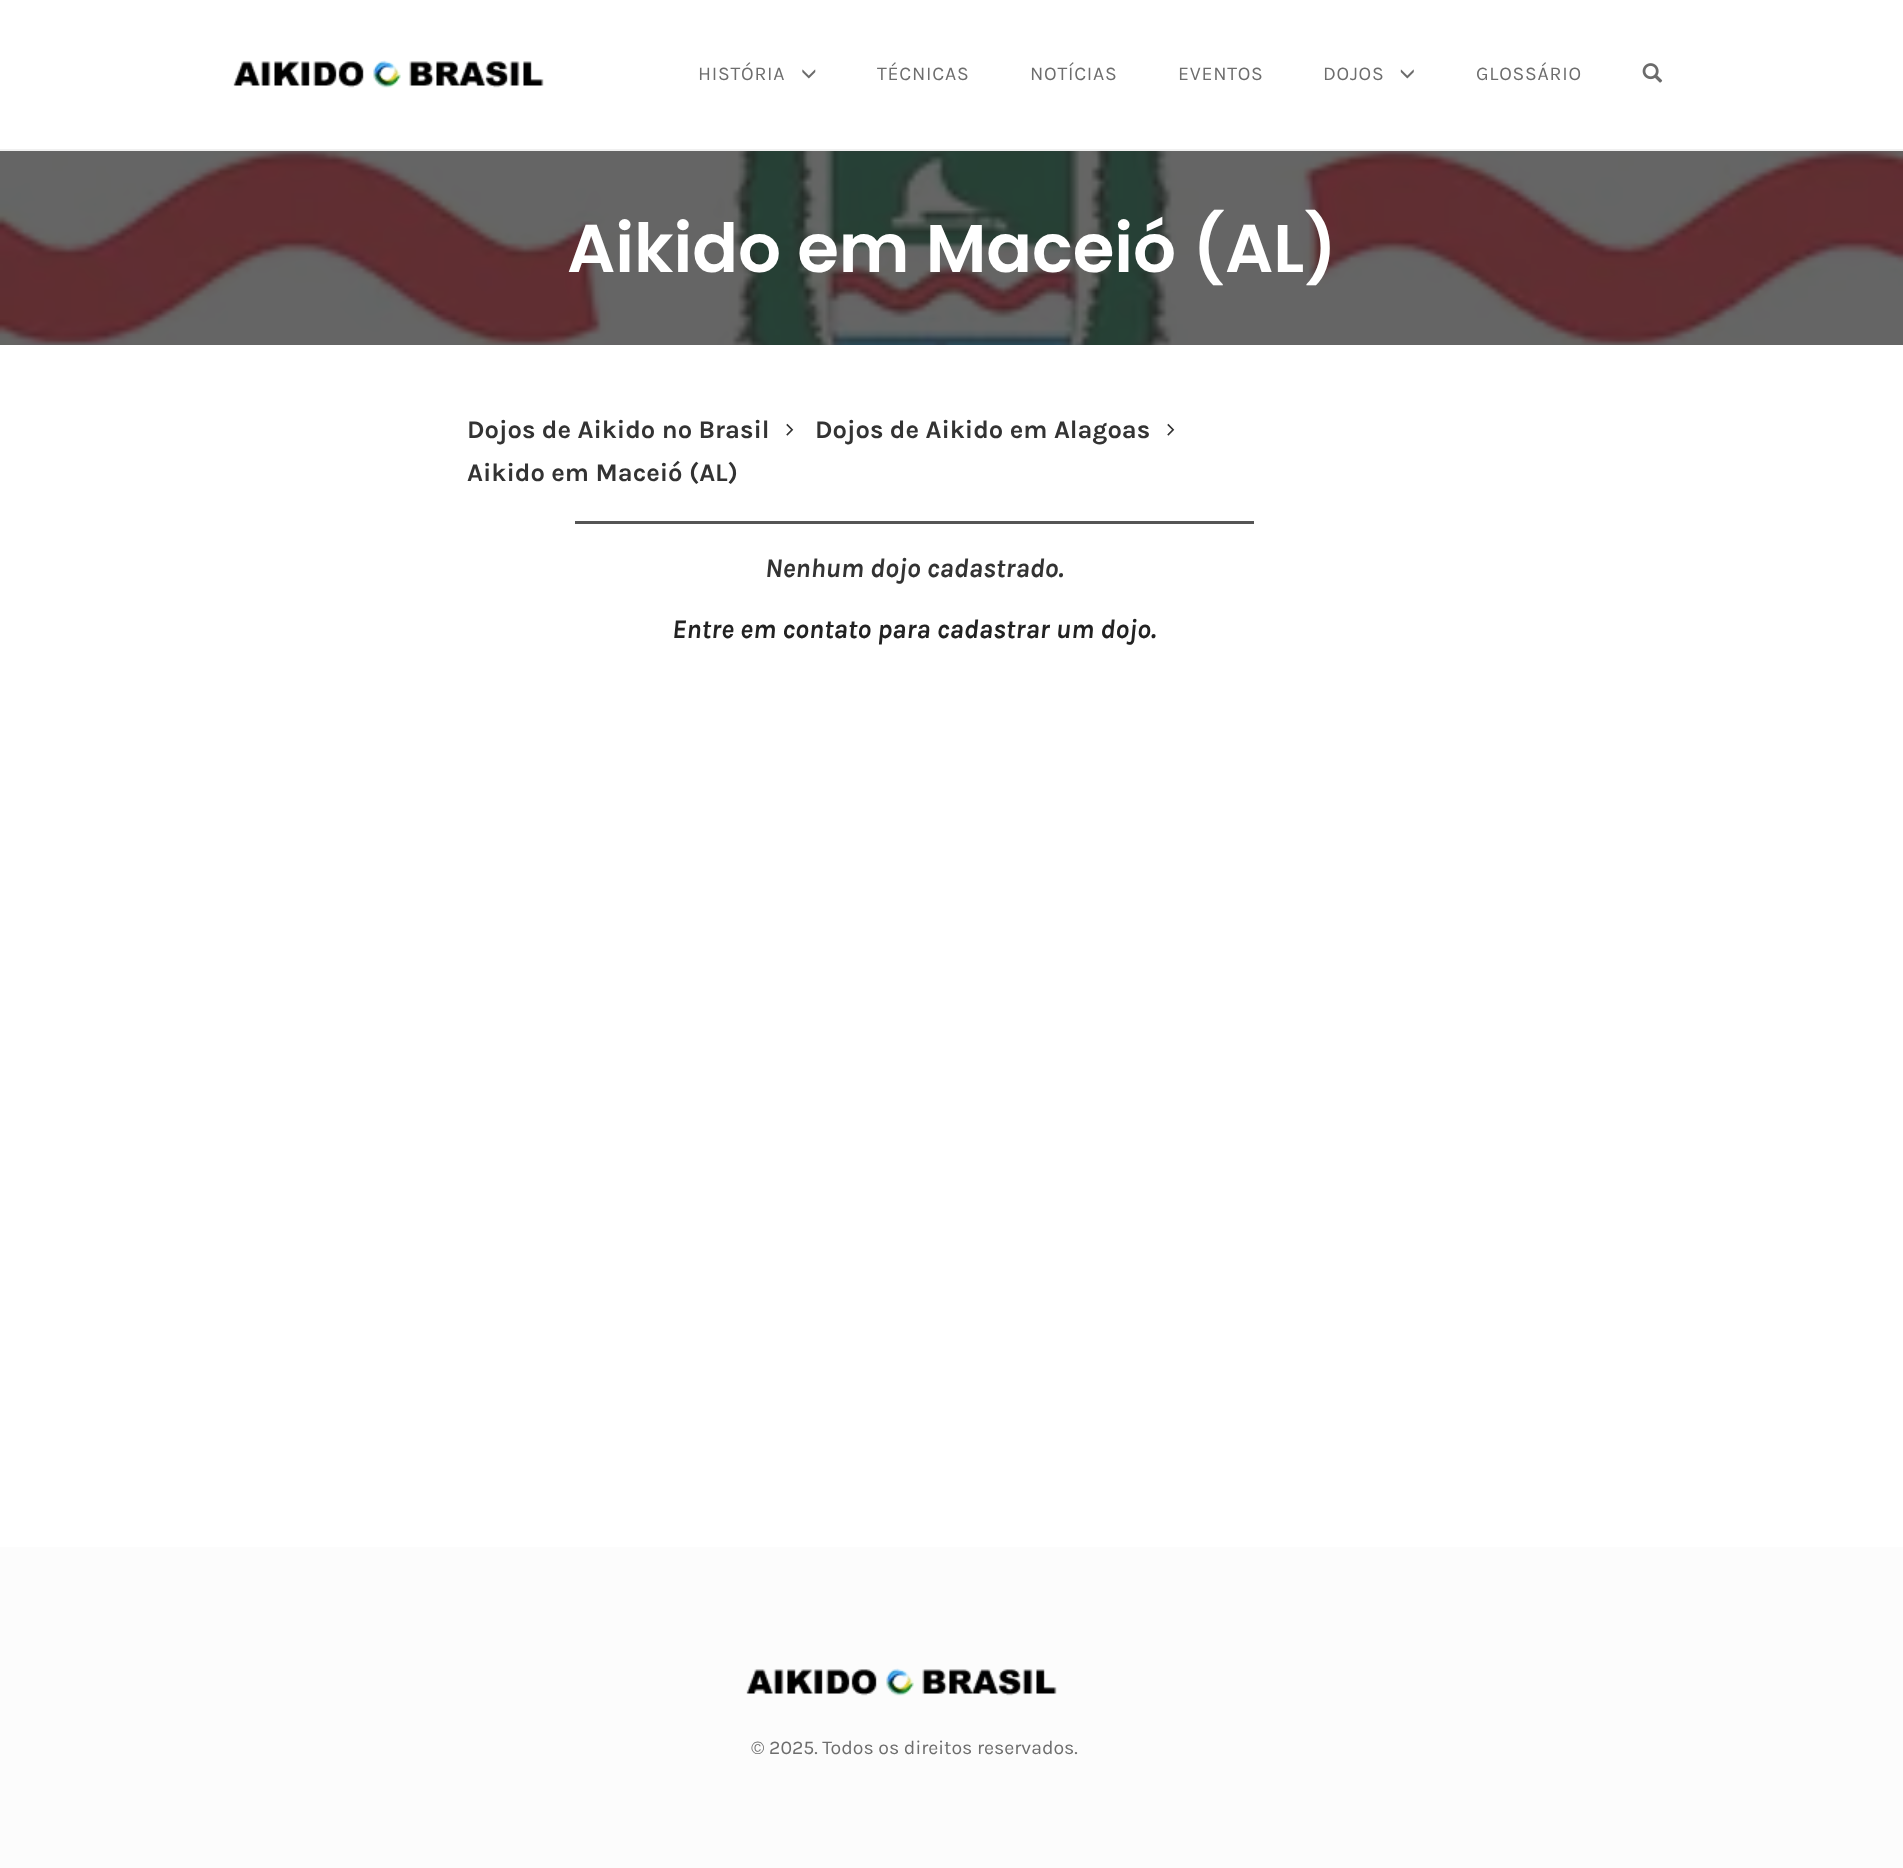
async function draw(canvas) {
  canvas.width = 1903;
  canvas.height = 1868;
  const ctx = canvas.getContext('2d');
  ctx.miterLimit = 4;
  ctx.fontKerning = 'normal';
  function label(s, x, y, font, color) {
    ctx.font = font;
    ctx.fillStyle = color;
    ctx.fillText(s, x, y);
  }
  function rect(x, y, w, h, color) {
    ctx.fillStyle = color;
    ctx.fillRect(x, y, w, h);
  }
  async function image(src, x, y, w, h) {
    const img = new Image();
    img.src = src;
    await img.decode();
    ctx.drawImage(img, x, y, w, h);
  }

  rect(0, 0, 1903, 1868, '#fff');
  rect(0, 149, 1903, 2, '#f0f0f0');
  await image('assets/img1.png', 233, 60, 311, 28);
  ctx.letterSpacing = '0.75px';
  label('HISTÓRIA', 698, 80, '19.5px Karla', '#6d6d6d');
  await image('assets/img2.png', 802, 69, 14, 10);
  label('TÉCNICAS', 877, 80, '19.5px Karla', '#6d6d6d');
  label('NOTÍCIAS', 1030, 80, '19.5px Karla', '#6d6d6d');
  label('EVENTOS', 1178, 80, '19.5px Karla', '#6d6d6d');
  label('DOJOS', 1323, 80, '19.5px Karla', '#6d6d6d');
  await image('assets/img3.png', 1400, 69, 14, 10);
  label('GLOSSÁRIO', 1476, 80, '19.5px Karla', '#6d6d6d');
  await image('assets/img4.png', 1642, 63, 21, 20);
  await image('assets/img5.png', 0, 151, 1903, 194);
  ctx.letterSpacing = '0px';
  label('Aikido em Maceió (AL)', 567, 272, '600 67.5px Poppins', '#fff');
  label('Dojos de Aikido no Brasil', 467, 438, 'bold 25.5px Karla', '#333');
  await image('assets/img6.png', 786, 423, 8, 13);
  label('Dojos de Aikido em Alagoas', 815, 438, 'bold 25.5px Karla', '#333');
  await image('assets/img6.png', 1167, 423, 8, 13);
  label('Aikido em Maceió (AL)', 467, 481, 'bold 25.5px Karla', '#333');
  rect(575, 521, 679, 3, '#555');
  label('Nenhum dojo cadastrado.', 765, 577, 'italic bold 27px Karla', '#333');
  label('Entre em contato para cadastrar um dojo.', 672, 638, 'italic bold 27px Karla', '#222');
  rect(0, 1547, 1903, 321, '#fcfcfc');
  await image('assets/img7.png', 746, 1668, 311, 28);
  label('© 2025. Todos os direitos reservados.', 751, 1754, '19.5px Karla', '#6d6d6d');
}

draw(document.querySelector('canvas'));
